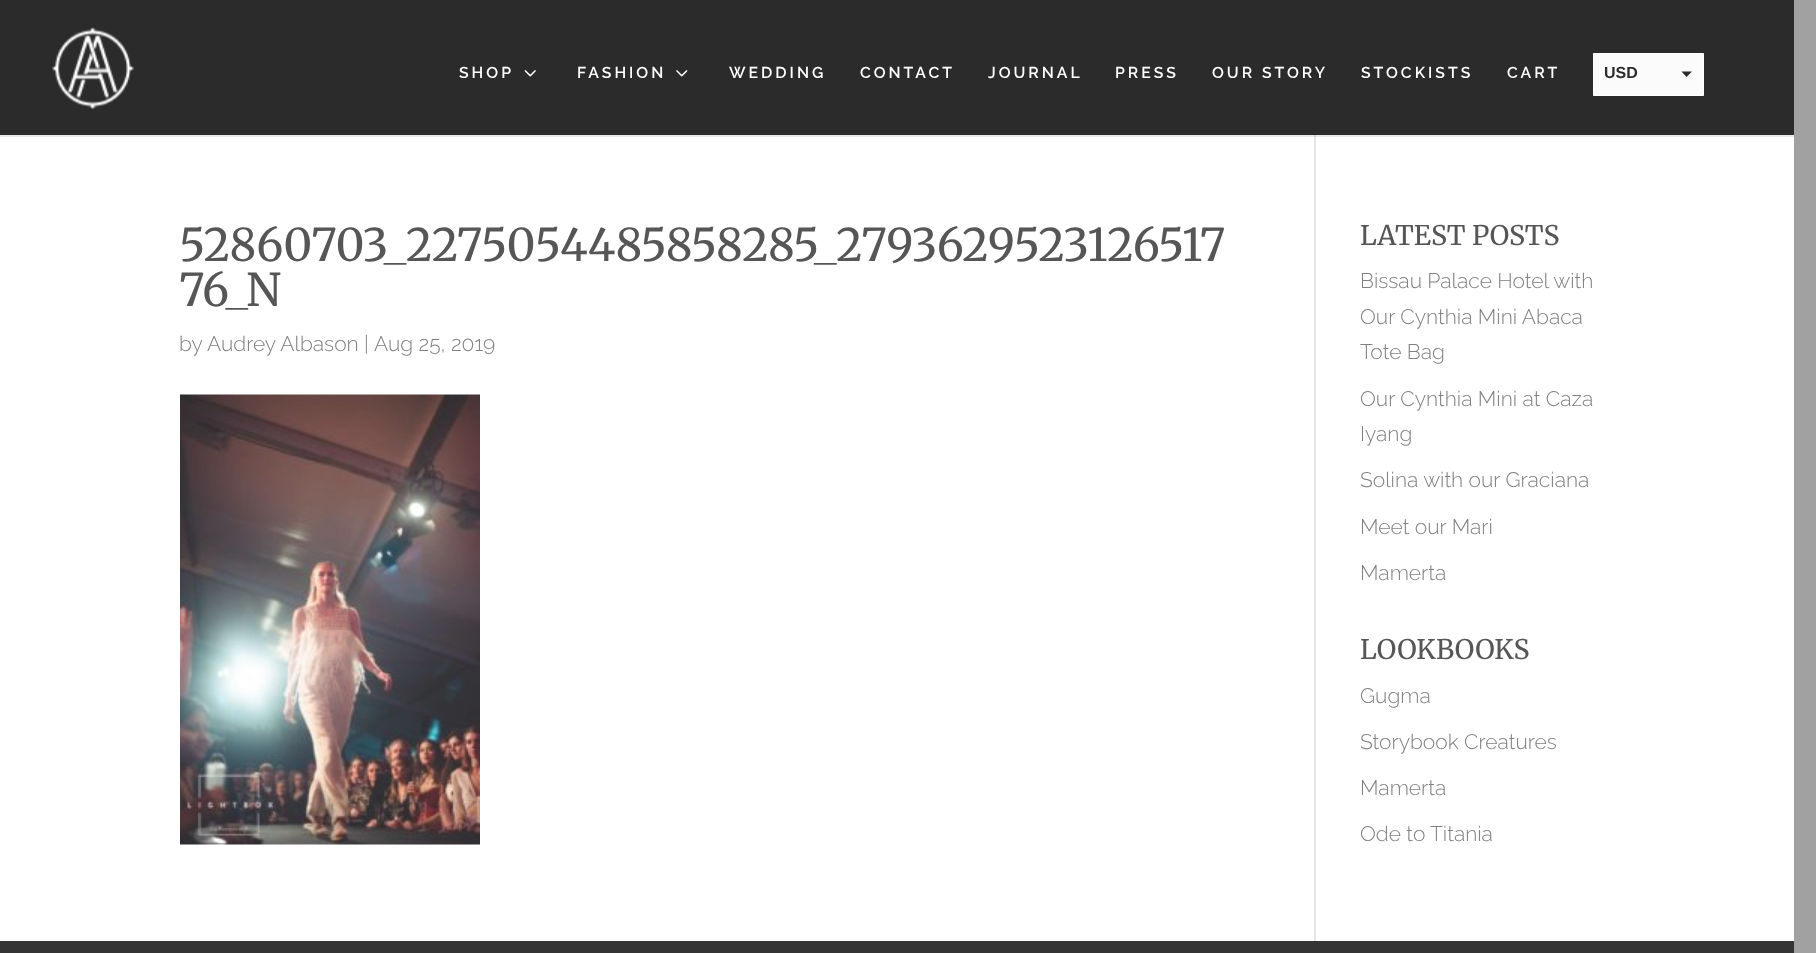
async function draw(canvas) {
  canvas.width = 1816;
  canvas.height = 953;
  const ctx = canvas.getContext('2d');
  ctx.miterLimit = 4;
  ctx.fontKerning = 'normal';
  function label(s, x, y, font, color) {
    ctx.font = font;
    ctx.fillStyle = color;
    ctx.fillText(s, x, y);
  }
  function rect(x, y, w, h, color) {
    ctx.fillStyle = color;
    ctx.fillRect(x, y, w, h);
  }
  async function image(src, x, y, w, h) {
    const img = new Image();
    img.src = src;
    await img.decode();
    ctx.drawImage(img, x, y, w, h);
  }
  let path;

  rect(0, 0, 1816, 953, '#a1a1a1');
  rect(0, 0, 1794, 135, '#2b2b2b');
  await image('assets/img1.png', 52, 27, 82, 83);
  ctx.letterSpacing = '3px';
  label('SHOP', 459, 78, '100 15.75px "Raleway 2"', '#fff');
  await image('assets/img2.png', 524, 70, 12, 7);
  label('FASHION', 577, 78, '100 15.75px "Raleway 2"', '#fff');
  await image('assets/img3.png', 676, 70, 12, 7);
  label('WEDDING', 729, 78, '100 15.75px "Raleway 2"', '#fff');
  label('CONTACT', 860, 78, '100 15.75px "Raleway 2"', '#fff');
  label('JOURNAL', 988, 78, '100 15.75px "Raleway 2"', '#fff');
  label('PRESS', 1115, 78, '100 15.75px "Raleway 2"', '#fff');
  label('OUR STORY', 1212, 78, '100 15.75px "Raleway 2"', '#fff');
  label('STOCKISTS', 1361, 78, '100 15.75px "Raleway 2"', '#fff');
  label('CART', 1507, 78, '100 15.75px "Raleway 2"', '#fff');
  ctx.fillStyle = '#fbfbfb';
  ctx.beginPath();
  ctx.rect(1593.5, 53.5, 110, 42);
  ctx.fill();
  ctx.strokeStyle = '#fff';
  ctx.stroke();
  ctx.letterSpacing = '0px';
  label('USD', 1604, 78, 'bold 16px Liberation Sans', '#2b2b2b');
  path = new Path2D('M1681.5 71.5H1692L1686.5 77Z');
  ctx.fill(path);
  rect(0, 137, 1794, 804, '#fff');
  rect(0, 135, 1794, 2, '#eaeaea');
  rect(1314, 135, 2, 806, '#e7e7e7');
  rect(1314, 135, 2, 2, '#d4d4d4');
  label('52860703_2275054485858285_2793629523126517', 179, 261, '300 45px Merriweather', '#565656');
  label('76_N', 179, 306, '300 45px Merriweather', '#565656');
  label('by', 179, 351, '100 21px Raleway', '#808080');
  label('Audrey Albason', 207, 351, '100 21px Raleway', '#808080');
  label('|', 364, 351, '100 21px Raleway', '#808080');
  label('Aug 25, 2019', 374, 351, '100 21px Raleway', '#808080');
  await image('assets/img4.png', 180, 394, 300, 451);
  label('LATEST POSTS', 1360, 245, '300 27px Merriweather', '#565656');
  label('Bissau Palace Hotel with', 1360, 288, '100 21px Raleway', '#808080');
  label('Our Cynthia Mini Abaca', 1360, 324, '100 21px Raleway', '#808080');
  label('Tote Bag', 1360, 359, '100 21px Raleway', '#808080');
  label('Our Cynthia Mini at Caza', 1360, 406, '100 21px Raleway', '#808080');
  label('Iyang', 1360, 441, '100 21px Raleway', '#808080');
  label('Solina with our Graciana', 1360, 487, '100 21px Raleway', '#808080');
  label('Meet our Mari', 1360, 534, '100 21px Raleway', '#808080');
  label('Mamerta', 1360, 580, '100 21px Raleway', '#808080');
  label('LOOKBOOKS', 1360, 659, '300 27px Merriweather', '#565656');
  label('Gugma', 1360, 703, '100 21px Raleway', '#808080');
  label('Storybook Creatures', 1360, 749, '100 21px Raleway', '#808080');
  label('Mamerta', 1360, 795, '100 21px Raleway', '#808080');
  label('Ode to Titania', 1360, 841, '100 21px Raleway', '#808080');
  rect(0, 941, 1794, 12, '#343434');
}

draw(document.querySelector('canvas'));
